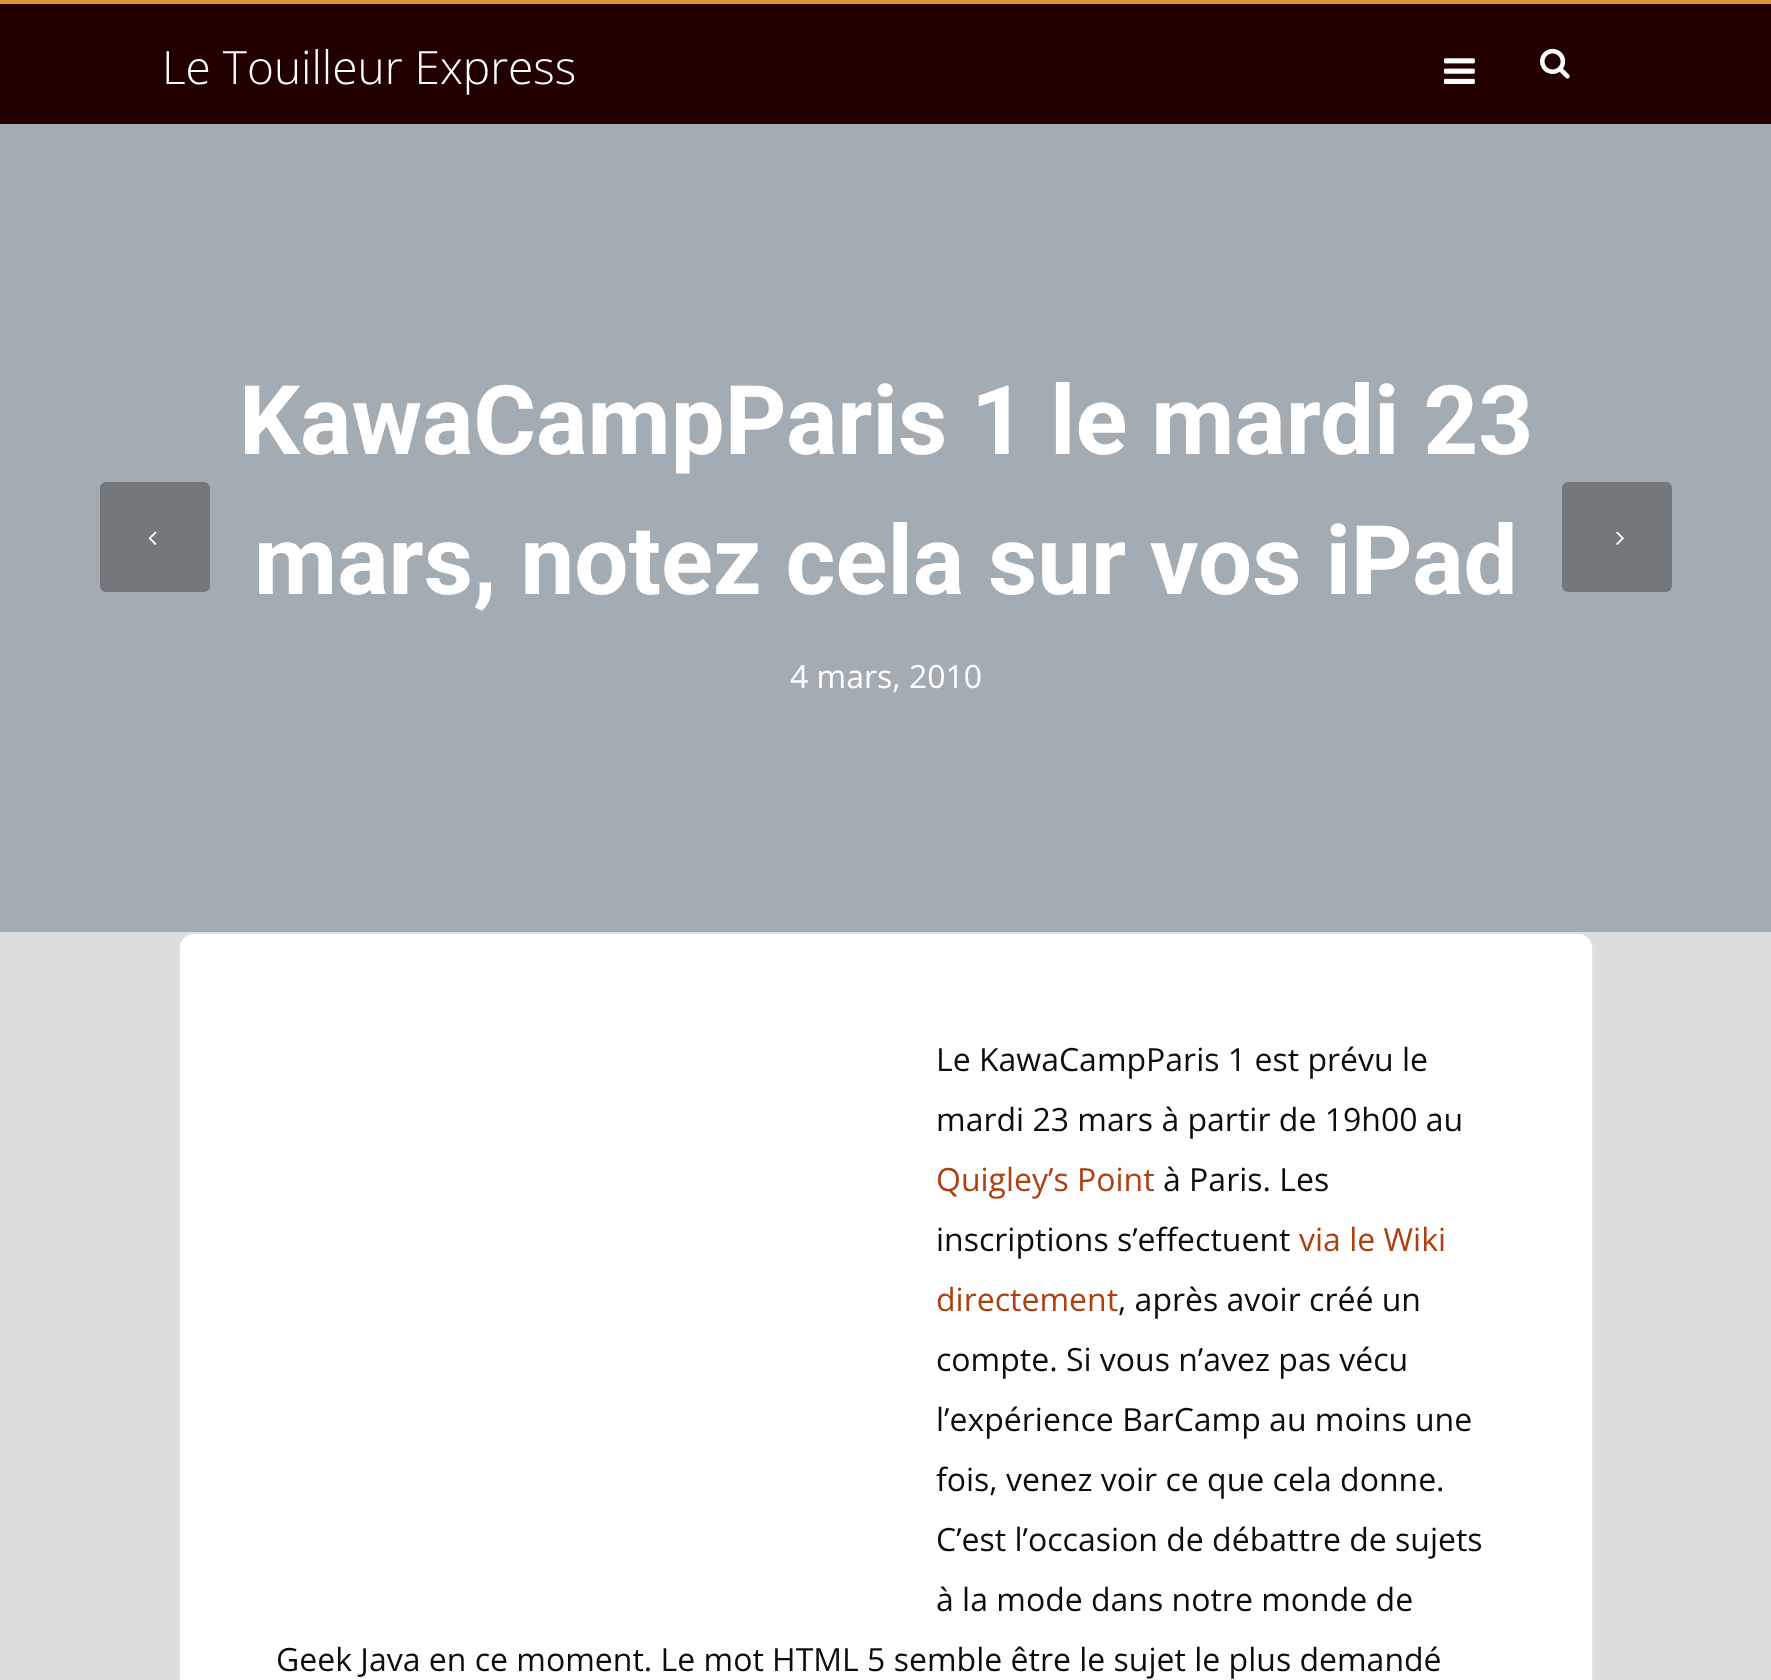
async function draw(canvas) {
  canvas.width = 1771;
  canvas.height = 1680;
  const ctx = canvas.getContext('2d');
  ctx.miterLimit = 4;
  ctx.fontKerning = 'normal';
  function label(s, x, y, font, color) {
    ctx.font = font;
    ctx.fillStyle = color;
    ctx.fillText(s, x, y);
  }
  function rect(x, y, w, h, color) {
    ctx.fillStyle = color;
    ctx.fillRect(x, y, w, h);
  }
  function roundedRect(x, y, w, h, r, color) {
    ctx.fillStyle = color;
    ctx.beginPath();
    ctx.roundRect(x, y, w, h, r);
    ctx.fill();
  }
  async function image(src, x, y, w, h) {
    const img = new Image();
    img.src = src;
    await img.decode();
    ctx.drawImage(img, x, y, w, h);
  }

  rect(0, 0, 1771, 1680, '#a4acb3');
  rect(0, 4, 1771, 120, '#230000');
  rect(0, 0, 1771, 4, '#d93');
  label('Le Touilleur Express', 162, 84, '300 46px Open Sans', '#fff');
  await image('assets/img1.png', 1444, 58, 31, 26);
  await image('assets/img2.png', 1540, 48, 30, 31);
  label('KawaCampParis 1 le mardi 23', 239, 454, 'bold 96px Roboto', '#fff');
  label('mars, notez cela sur vos iPad', 254, 594, 'bold 96px Roboto', '#fff');
  label('4 mars, 2010', 790, 688, '32px Open Sans', '#fff');
  roundedRect(100, 482, 110, 110, 6, '#73787d');
  await image('assets/img3.png', 148, 531, 9, 14);
  roundedRect(1562, 482, 110, 110, 6, '#73787d');
  await image('assets/img4.png', 1616, 531, 8, 14);
  rect(0, 932, 1771, 748, '#ddd');
  ctx.fillStyle = '#fff';
  ctx.beginPath();
  ctx.roundRect(179, 933, 1414, 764, 15);
  ctx.fill();
  ctx.strokeStyle = '#e0e0e0';
  ctx.lineWidth = 2;
  ctx.stroke();
  label('Le KawaCampParis 1 est prévu le', 936, 1071, '32px Open Sans', '#0d0d0d');
  label('mardi 23 mars à partir de 19h00 au', 936, 1131, '32px Open Sans', '#0d0d0d');
  label('Quigley’s Point', 936, 1191, '32px Open Sans', '#ad4011');
  label('à Paris. Les', 1163, 1191, '32px Open Sans', '#0d0d0d');
  label('inscriptions s’effectuent', 936, 1251, '32px Open Sans', '#0d0d0d');
  label('via le Wiki', 1299, 1251, '32px Open Sans', '#ad4011');
  label('directement', 936, 1311, '32px Open Sans', '#ad4011');
  label(', après avoir créé un', 1118, 1311, '32px Open Sans', '#0d0d0d');
  label('compte. Si vous n’avez pas vécu', 936, 1371, '32px Open Sans', '#0d0d0d');
  label('l’expérience BarCamp au moins une', 936, 1431, '32px Open Sans', '#0d0d0d');
  label('fois, venez voir ce que cela donne.', 936, 1491, '32px Open Sans', '#0d0d0d');
  label('C’est l’occasion de débattre de sujets', 936, 1551, '32px Open Sans', '#0d0d0d');
  label('à la mode dans notre monde de', 936, 1611, '32px Open Sans', '#0d0d0d');
  label('Geek Java en ce moment. Le mot HTML 5 semble être le sujet le plus demandé', 276, 1671, '32px Open Sans', '#0d0d0d');
}

draw(document.querySelector('canvas'));
